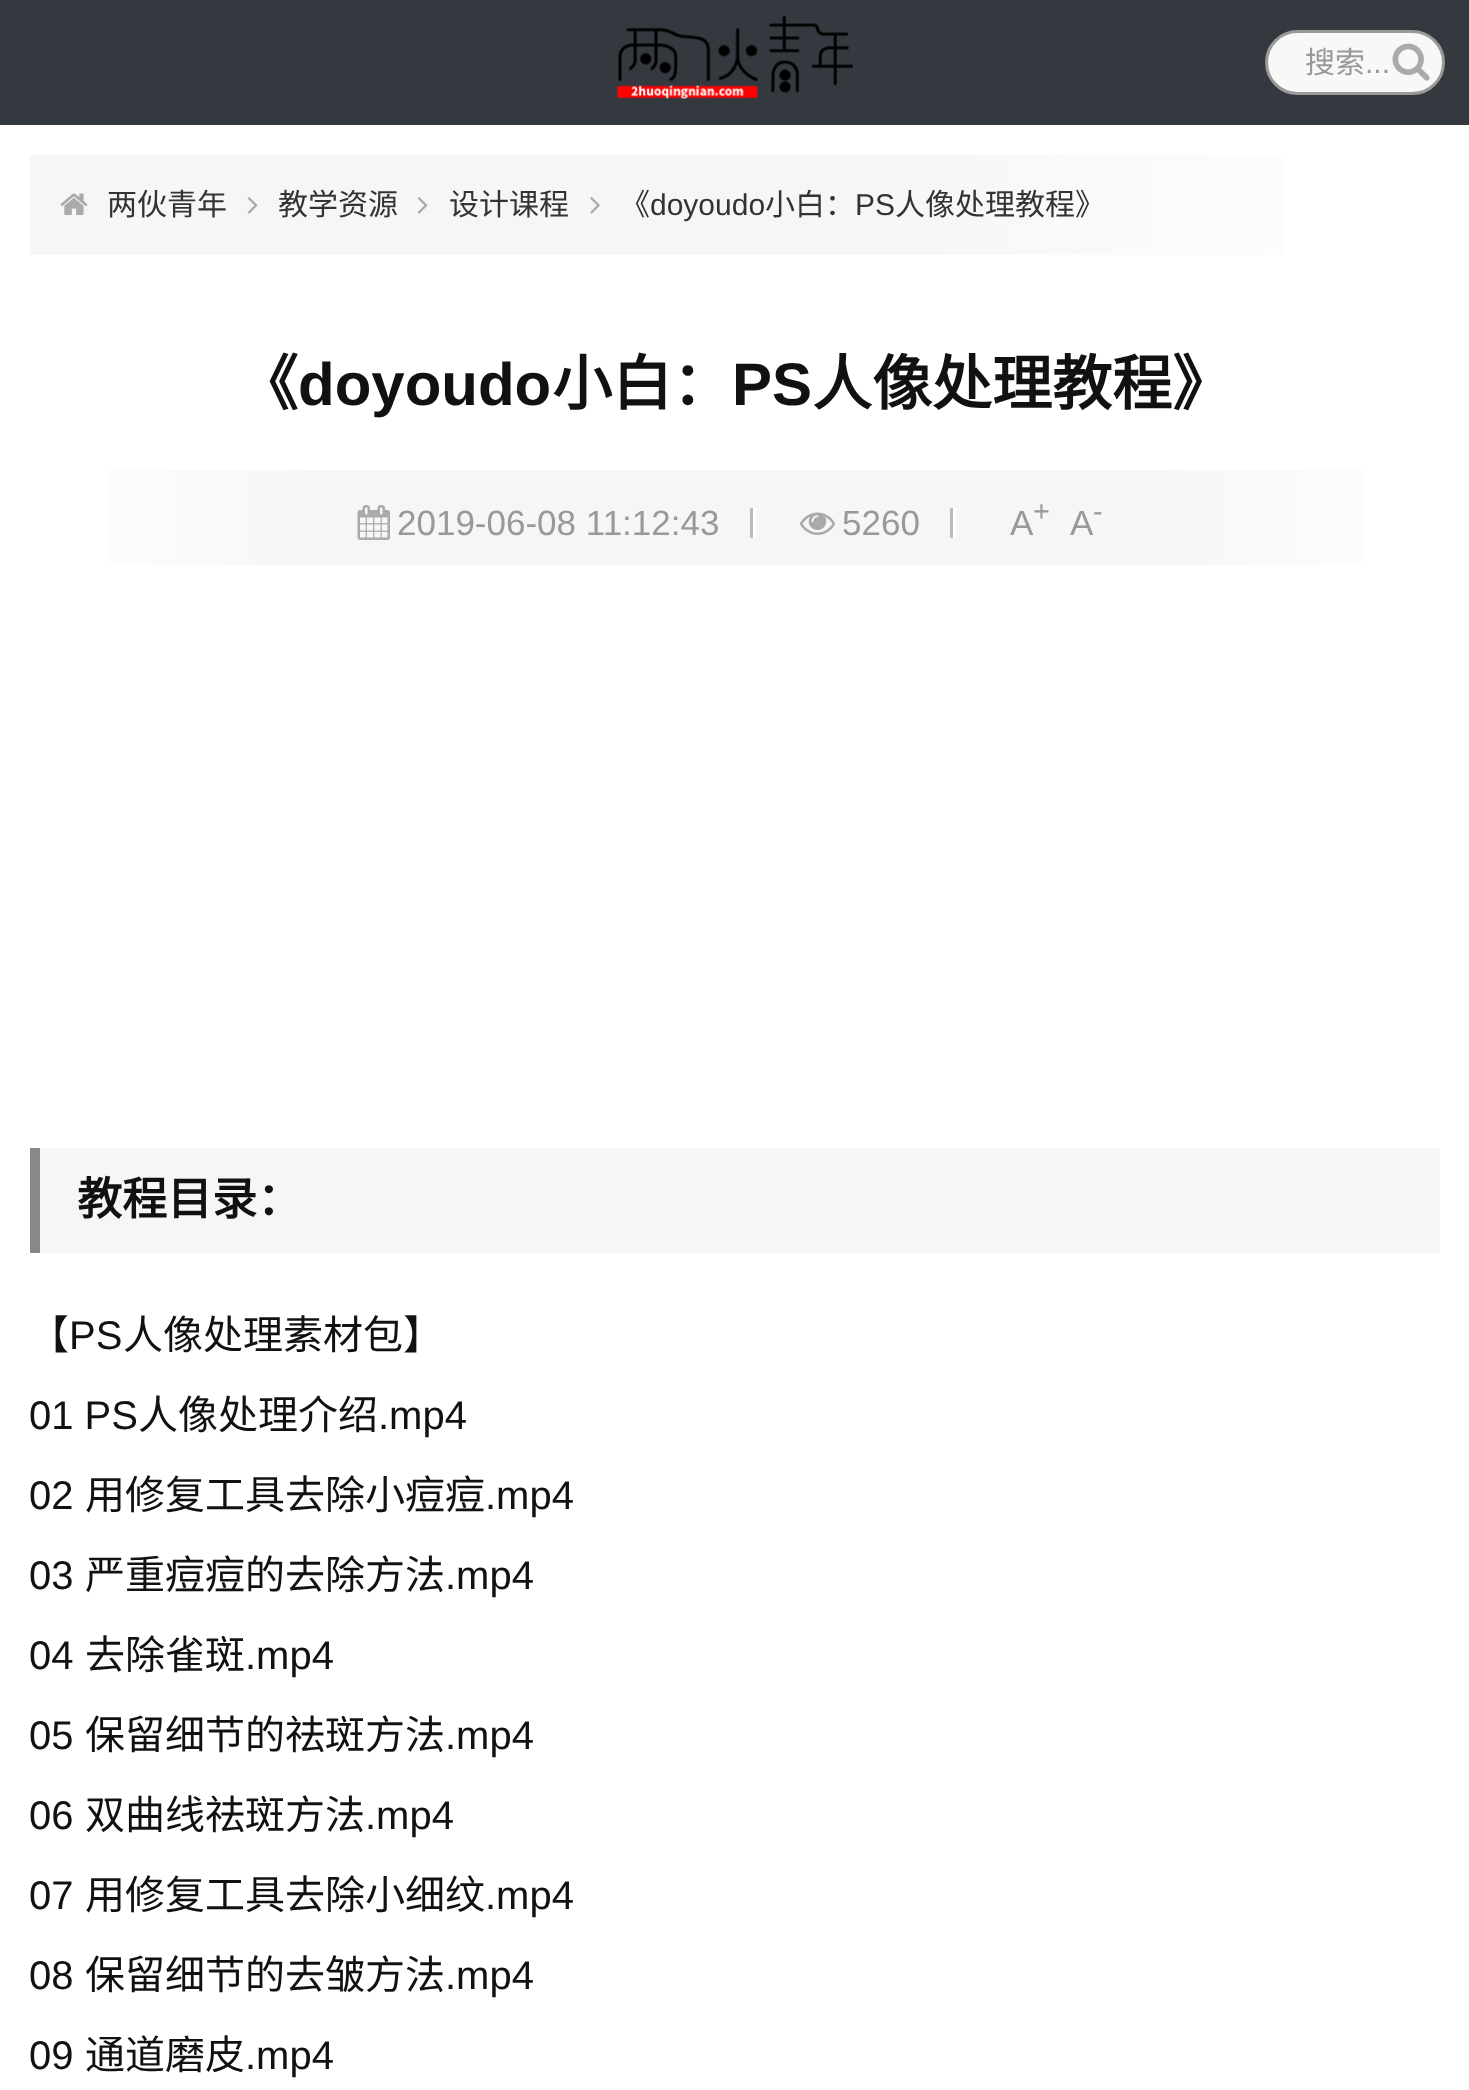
async function draw(canvas) {
  canvas.width = 1469;
  canvas.height = 2090;
  const ctx = canvas.getContext('2d');
  ctx.miterLimit = 4;
  ctx.fontKerning = 'normal';
  function label(s, x, y, font, color) {
    ctx.font = font;
    ctx.fillStyle = color;
    ctx.fillText(s, x, y);
  }
  function rect(x, y, w, h, color) {
    ctx.fillStyle = color;
    ctx.fillRect(x, y, w, h);
  }
  async function image(src, x, y, w, h) {
    const img = new Image();
    img.src = src;
    await img.decode();
    ctx.drawImage(img, x, y, w, h);
  }
  let gradient;

  rect(0, 0, 1469, 2090, '#fff');
  rect(0, 0, 1469, 125, '#34393f');
  await image('assets/img1.png', 617, 15, 236, 84);
  ctx.fillStyle = '#f8f8f8';
  ctx.beginPath();
  ctx.roundRect(1266.5, 31.5, 177, 62, 31);
  ctx.fill();
  ctx.strokeStyle = '#999';
  ctx.lineWidth = 3;
  ctx.stroke();
  label('搜索', 1305, 73, '30px Noto Sans CJK SC', '#999');
  label('...', 1365, 73, '30px Liberation Sans', '#999');
  await image('assets/img2.png', 1392, 43, 38, 38);
  gradient = ctx.createLinearGradient(30, 205, 1440, 205);
  gradient.addColorStop(0, '#f6f6f6');
  gradient.addColorStop(0.6, '#f6f6f6');
  gradient.addColorStop(1, '#fff');
  ctx.fillStyle = gradient;
  ctx.fillRect(30, 155, 1253, 100);
  await image('assets/img3.png', 60, 193, 28, 22);
  label('两伙青年', 107, 215, '30px Noto Sans CJK SC', '#333');
  await image('assets/img4.png', 247, 197, 11, 17);
  label('教学资源', 278, 215, '30px Noto Sans CJK SC', '#333');
  await image('assets/img4.png', 417, 197, 11, 17);
  label('设计课程', 449, 215, '30px Noto Sans CJK SC', '#333');
  await image('assets/img5.png', 590, 197, 10, 17);
  label('《', 620, 215, '30px Noto Sans CJK SC', '#333');
  label('doyoudo', 650, 215, '30px Liberation Sans', '#333');
  label('小白：', 765, 215, '30px Noto Sans CJK SC', '#333');
  label('PS', 855, 215, '30px Liberation Sans', '#333');
  label('人像处理教程》', 895, 215, '30px Noto Sans CJK SC', '#333');
  label('《', 238, 405, 'bold 60px Noto Sans CJK SC', '#111');
  label('doyoudo', 298, 405, 'bold 60px Liberation Sans', '#111');
  label('小白：', 552, 405, 'bold 60px Noto Sans CJK SC', '#111');
  label('PS', 732, 405, 'bold 60px Liberation Sans', '#111');
  label('人像处理教程》', 812, 405, 'bold 60px Noto Sans CJK SC', '#111');
  gradient = ctx.createLinearGradient(30, 518, 1440, 517);
  gradient.addColorStop(0, '#fff');
  gradient.addColorStop(0.2, '#f6f6f6');
  gradient.addColorStop(0.8, '#f6f6f6');
  gradient.addColorStop(1, '#fff');
  ctx.fillStyle = gradient;
  ctx.fillRect(108, 470, 1254, 95);
  await image('assets/img6.png', 357, 505, 33, 35);
  label('2019-06-08 11:12:43', 397, 535, '35px Liberation Sans', '#999');
  rect(753, 508, 3, 30, '#fff');
  rect(750, 508, 3, 30, '#bbb');
  await image('assets/img7.png', 800, 512, 35, 23);
  label('5260', 842, 535, '35px Liberation Sans', '#999');
  rect(953, 508, 3, 30, '#fff');
  rect(950, 508, 3, 30, '#bbb');
  label('A', 1010, 535, '35px Liberation Sans', '#999');
  label('+', 1033, 521, '29px Liberation Sans', '#999');
  label('A', 1070, 535, '35px Liberation Sans', '#999');
  label('-', 1093, 521, '29px Liberation Sans', '#999');
  rect(40, 1148, 1400, 105, '#f6f6f6');
  rect(30, 1148, 10, 105, '#888');
  label('教程目录：', 77, 1215, 'bold 45px Noto Sans CJK SC', '#111');
  label('【', 29, 1349, '40px Noto Sans CJK SC', '#111');
  label('PS', 69, 1349, '40px Liberation Sans', '#111');
  label('人像处理素材包】', 123, 1349, '40px Noto Sans CJK SC', '#111');
  label('01 PS', 29, 1429, '40px Liberation Sans', '#111');
  label('人像处理介绍', 138, 1429, '40px Noto Sans CJK SC', '#111');
  label('.mp4', 378, 1429, '40px Liberation Sans', '#111');
  label('02', 29, 1509, '40px Liberation Sans', '#111');
  label('用修复工具去除小痘痘', 85, 1509, '40px Noto Sans CJK SC', '#111');
  label('.mp4', 485, 1509, '40px Liberation Sans', '#111');
  label('03', 29, 1589, '40px Liberation Sans', '#111');
  label('严重痘痘的去除方法', 85, 1589, '40px Noto Sans CJK SC', '#111');
  label('.mp4', 445, 1589, '40px Liberation Sans', '#111');
  label('04', 29, 1669, '40px Liberation Sans', '#111');
  label('去除雀斑', 85, 1669, '40px Noto Sans CJK SC', '#111');
  label('.mp4', 245, 1669, '40px Liberation Sans', '#111');
  label('05', 29, 1749, '40px Liberation Sans', '#111');
  label('保留细节的祛斑方法', 85, 1749, '40px Noto Sans CJK SC', '#111');
  label('.mp4', 445, 1749, '40px Liberation Sans', '#111');
  label('06', 29, 1829, '40px Liberation Sans', '#111');
  label('双曲线祛斑方法', 85, 1829, '40px Noto Sans CJK SC', '#111');
  label('.mp4', 365, 1829, '40px Liberation Sans', '#111');
  label('07', 29, 1909, '40px Liberation Sans', '#111');
  label('用修复工具去除小细纹', 85, 1909, '40px Noto Sans CJK SC', '#111');
  label('.mp4', 485, 1909, '40px Liberation Sans', '#111');
  label('08', 29, 1989, '40px Liberation Sans', '#111');
  label('保留细节的去皱方法', 85, 1989, '40px Noto Sans CJK SC', '#111');
  label('.mp4', 445, 1989, '40px Liberation Sans', '#111');
  label('09', 29, 2069, '40px Liberation Sans', '#111');
  label('通道磨皮', 85, 2069, '40px Noto Sans CJK SC', '#111');
  label('.mp4', 245, 2069, '40px Liberation Sans', '#111');
}

draw(document.querySelector('canvas'));
